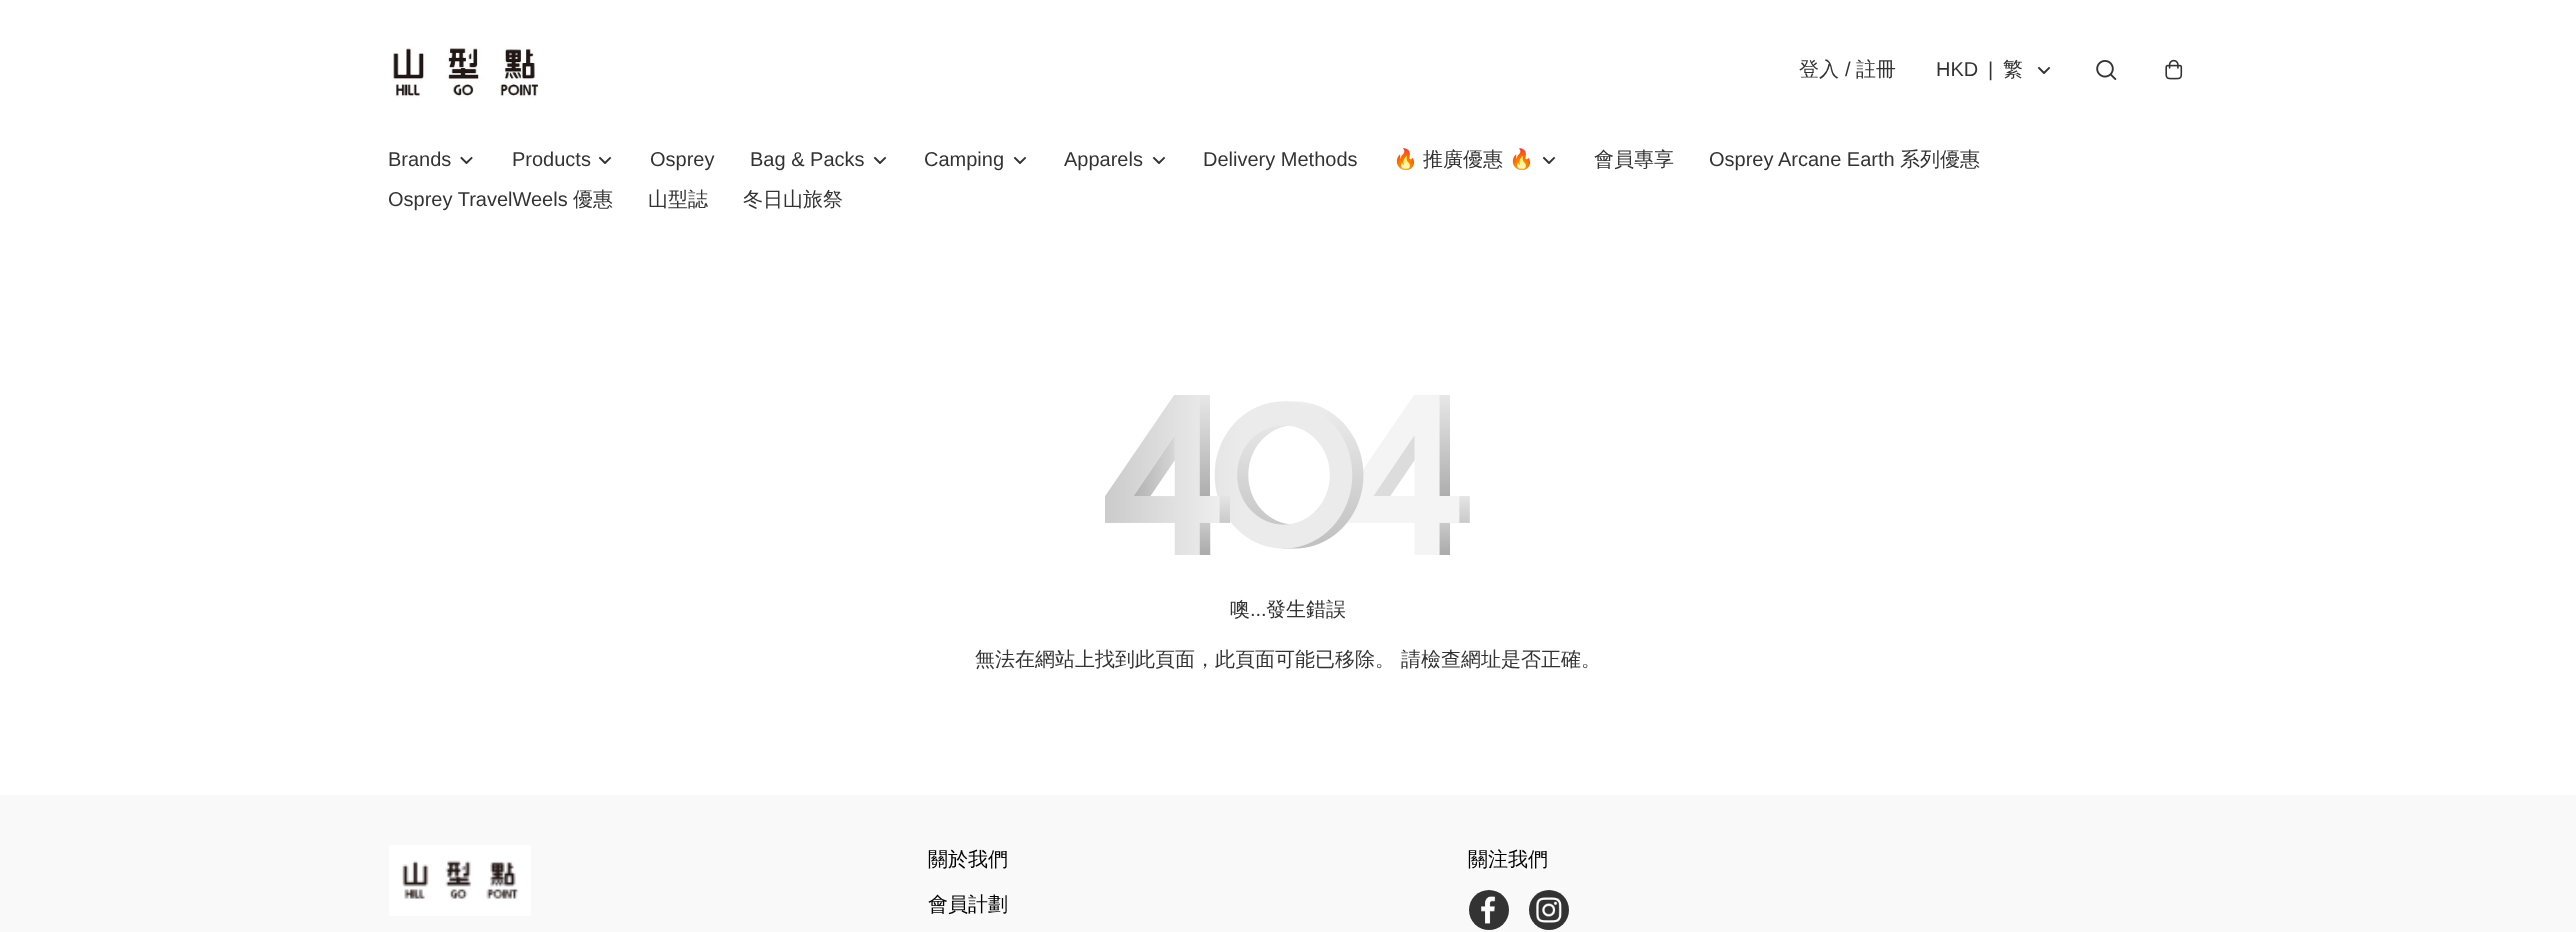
async function draw(canvas) {
  canvas.width = 2576;
  canvas.height = 932;
  const ctx = canvas.getContext('2d');
  ctx.miterLimit = 4;
  ctx.fontKerning = 'normal';
  function label(s, x, y, font, color) {
    ctx.font = font;
    ctx.fillStyle = color;
    ctx.fillText(s, x, y);
  }
  function rect(x, y, w, h, color) {
    ctx.fillStyle = color;
    ctx.fillRect(x, y, w, h);
  }
  async function image(src, x, y, w, h) {
    const img = new Image();
    img.src = src;
    await img.decode();
    ctx.drawImage(img, x, y, w, h);
  }
  let path;

  rect(0, 0, 2576, 932, '#fff');
  await image('assets/img1.png', 393, 47, 146, 51);
  label('登入', 1799, 76, '500 20px WenQuanYi Zen Hei', '#333');
  label('/', 1845, 76, '20px Liberation Sans', '#333');
  label('註冊', 1856, 76, '500 20px WenQuanYi Zen Hei', '#333');
  label('HKD', 1936, 76, '20px Liberation Sans', '#333');
  label('|', 1988, 76, '20px Liberation Sans', '#333');
  label('繁', 2003, 76, '500 20px WenQuanYi Zen Hei', '#333');
  path = new Path2D('M2039 68L2044 73L2049 68');
  ctx.strokeStyle = '#333';
  ctx.lineWidth = 1.9;
  ctx.lineCap = 'square';
  ctx.lineJoin = 'round';
  ctx.stroke(path);
  await image('assets/img2.png', 2096, 60, 21, 20);
  await image('assets/img3.png', 2165, 59, 18, 21);
  label('Brands', 388, 166, '20px Liberation Sans', '#333');
  path = new Path2D('M461.5 158L466.5 163L471.5 158');
  ctx.stroke(path);
  label('Products', 512, 166, '20px Liberation Sans', '#333');
  path = new Path2D('M600 158L605 163L610 158');
  ctx.stroke(path);
  label('Osprey', 650, 166, '20px Liberation Sans', '#333');
  label('Bag & Packs', 750, 166, '20px Liberation Sans', '#333');
  path = new Path2D('M875 158L880 163L885 158');
  ctx.stroke(path);
  label('Camping', 924, 166, '20px Liberation Sans', '#333');
  path = new Path2D('M1015 158L1020 163L1025 158');
  ctx.stroke(path);
  label('Apparels', 1064, 166, '20px Liberation Sans', '#333');
  path = new Path2D('M1154 158L1159 163L1164 158');
  ctx.stroke(path);
  label('Delivery Methods', 1203, 166, '20px Liberation Sans', '#333');
  label('🔥', 1393, 166, '20px Noto Color Emoji', '#333');
  label('推廣優惠', 1423, 166, '500 20px WenQuanYi Zen Hei', '#333');
  label('🔥', 1509, 166, '20px Noto Color Emoji', '#333');
  path = new Path2D('M1544 158L1549 163L1554 158');
  ctx.stroke(path);
  label('會員專享', 1594, 166, '500 20px WenQuanYi Zen Hei', '#333');
  label('Osprey Arcane Earth', 1709, 166, '20px Liberation Sans', '#333');
  label('系列優惠', 1900, 166, '500 20px WenQuanYi Zen Hei', '#333');
  label('Osprey TravelWeels', 388, 206, '20px Liberation Sans', '#333');
  label('優惠', 573, 206, '500 20px WenQuanYi Zen Hei', '#333');
  label('山型誌', 648, 206, '500 20px WenQuanYi Zen Hei', '#333');
  label('冬日山旅祭', 743, 206, '500 20px WenQuanYi Zen Hei', '#333');
  await image('assets/img4.png', 1105, 395, 365, 160);
  label('噢', 1230, 616, '500 20px WenQuanYi Zen Hei', '#333');
  label('...', 1250, 616, '20px Liberation Sans', '#333');
  label('發生錯誤', 1266, 616, '500 20px WenQuanYi Zen Hei', '#333');
  label('無法在網站上找到此頁面，此頁面可能已移除。 請檢查網址是否正確。', 975, 666, '500 20px WenQuanYi Zen Hei', '#333');
  rect(0, 795, 2576, 137, '#f9f9f9');
  await image('assets/img5.png', 389, 845, 142, 71);
  label('關於我們', 928, 866, '500 20px WenQuanYi Zen Hei', '#000');
  label('會員計劃', 928, 911, '500 20px WenQuanYi Zen Hei', '#000');
  label('關注我們', 1468, 866, '500 20px WenQuanYi Zen Hei', '#000');
  ctx.fillStyle = '#333';
  ctx.beginPath();
  ctx.arc(1489, 910, 20, 0, 2 * Math.PI);
  ctx.fill();
  await image('assets/img6.png', 1481, 896, 15, 28);
  ctx.beginPath();
  ctx.arc(1549, 910, 20, 0, 2 * Math.PI);
  ctx.fill();
  await image('assets/img7.png', 1536, 897, 26, 26);
}

draw(document.querySelector('canvas'));
